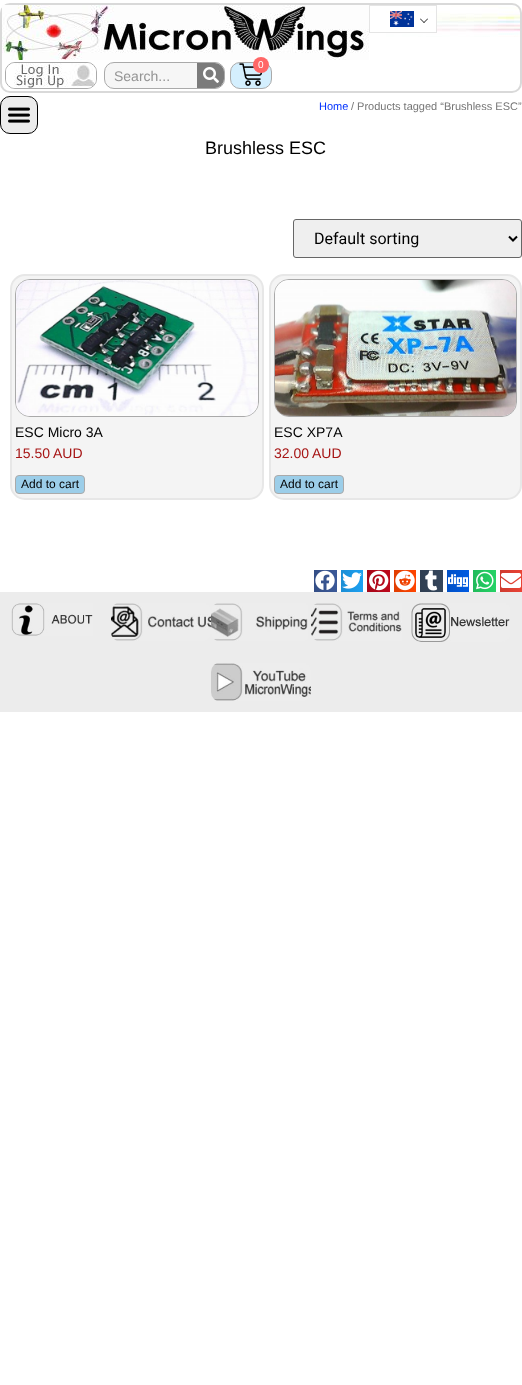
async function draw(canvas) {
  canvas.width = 522;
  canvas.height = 1385;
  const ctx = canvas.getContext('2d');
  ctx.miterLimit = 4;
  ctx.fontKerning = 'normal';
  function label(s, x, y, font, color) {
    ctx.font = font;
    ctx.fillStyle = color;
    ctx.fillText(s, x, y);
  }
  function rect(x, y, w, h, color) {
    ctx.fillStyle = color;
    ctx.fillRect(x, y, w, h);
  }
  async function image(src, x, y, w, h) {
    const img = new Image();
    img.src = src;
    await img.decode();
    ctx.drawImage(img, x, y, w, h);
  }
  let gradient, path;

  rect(0, 0, 522, 1385, '#fff');
  await image('assets/img1.png', 386, 5, 136, 32);
  ctx.beginPath();
  ctx.roundRect(1, 4, 520, 88, 9);
  ctx.strokeStyle = '#d9d9d9';
  ctx.lineWidth = 2;
  ctx.stroke();
  await image('assets/img2.png', 2, 5, 367, 55);
  rect(386, 13, 50, 19, '#fff');
  ctx.strokeStyle = '#e5e5e5';
  ctx.lineWidth = 1;
  ctx.strokeRect(369.5, 5.5, 67, 27);
  await image('assets/img3.png', 390, 11, 24, 16);
  ctx.fillStyle = '#212121';
  path = new Path2D('M427.5 18.5L428 19L424 23L423.5 22.5Z');
  ctx.fill(path);
  path = new Path2D('M420.5 18.5L424.5 22.5L424 23L420 19Z');
  ctx.fill(path);
  ctx.beginPath();
  ctx.roundRect(5.5, 62.5, 91, 26, 9.5);
  ctx.strokeStyle = '#aaa';
  ctx.stroke();
  await image('assets/img4.png', 6, 63, 90, 25);
  ctx.fillStyle = '#f6f6f6';
  ctx.beginPath();
  ctx.roundRect(104.5, 62.5, 120, 26, 9.5);
  ctx.fill();
  ctx.stroke();
  label('Search...', 114, 81, '14px Liberation Sans', '#939393');
  ctx.fillStyle = '#7b7b7b';
  ctx.beginPath();
  ctx.roundRect(197, 63, 27, 25, [0, 9, 9, 0]);
  ctx.fill();
  await image('assets/img5.png', 203, 67, 16, 16);
  ctx.fillStyle = '#d4effe';
  ctx.beginPath();
  ctx.roundRect(230.5, 62.5, 41, 26, 9.5);
  ctx.fill();
  ctx.stroke();
  await image('assets/img6.png', 239, 63, 24, 23);
  ctx.fillStyle = '#ff6767';
  ctx.beginPath();
  ctx.arc(261, 65, 8, 0, 2 * Math.PI);
  ctx.fill();
  label('0', 258, 68, '10px Liberation Sans', '#fff');
  ctx.fillStyle = '#ececec';
  ctx.beginPath();
  ctx.roundRect(0.5, 96.5, 37, 37, 9.5);
  ctx.fill();
  ctx.strokeStyle = '#000';
  ctx.stroke();
  await image('assets/img7.png', 8, 107, 22, 16);
  label('Home', 319, 110, '11px Liberation Sans', '#0031fe');
  label('/ Products tagged “Brushless ESC”', 351, 110, '11px Liberation Sans', '#767676');
  label('Brushless ESC', 205, 154, '18px Liberation Sans', '#000');
  ctx.fillStyle = '#efefef';
  ctx.beginPath();
  ctx.roundRect(293.5, 219.5, 228, 38, 2.5);
  ctx.fill();
  ctx.strokeStyle = '#666';
  ctx.stroke();
  path = new Path2D('M509 236.5L513 240.5L517 236.5');
  ctx.strokeStyle = '#000';
  ctx.lineWidth = 2;
  ctx.stroke(path);
  label('Default sorting', 314, 244, '16px Roboto', '#000');
  ctx.fillStyle = '#f4f4f4';
  ctx.beginPath();
  ctx.roundRect(11, 275, 252, 224, 14);
  ctx.fill();
  ctx.strokeStyle = '#e7e7e7';
  ctx.stroke();
  ctx.beginPath();
  ctx.roundRect(15.5, 279.5, 243, 137, 14.5);
  ctx.strokeStyle = '#aaa';
  ctx.lineWidth = 1;
  ctx.stroke();
  await image('assets/img8.png', 16, 280, 242, 136);
  label('ESC Micro 3A', 15, 437, '14px Liberation Sans', '#000');
  label('15.50', 15, 458, '14px Liberation Sans', '#a61515');
  label('AUD', 53, 458, '14px Liberation Sans', '#a61515');
  ctx.fillStyle = '#9ccee9';
  ctx.beginPath();
  ctx.roundRect(15.5, 475.5, 69, 18, 3.5);
  ctx.fill();
  ctx.stroke();
  label('Add to cart', 21, 488, '12px Liberation Sans', '#000');
  ctx.fillStyle = '#f4f4f4';
  ctx.beginPath();
  ctx.roundRect(270, 275, 251, 224, 14);
  ctx.fill();
  ctx.strokeStyle = '#e7e7e7';
  ctx.lineWidth = 2;
  ctx.stroke();
  ctx.beginPath();
  ctx.roundRect(274.5, 279.5, 242, 137, 14.5);
  ctx.strokeStyle = '#aaa';
  ctx.lineWidth = 1;
  ctx.stroke();
  await image('assets/img9.png', 275, 280, 241, 136);
  label('ESC XP7A', 274, 437, '14px Liberation Sans', '#000');
  label('32.00', 274, 458, '14px Liberation Sans', '#a61515');
  label('AUD', 312, 458, '14px Liberation Sans', '#a61515');
  ctx.fillStyle = '#9ccee9';
  ctx.beginPath();
  ctx.roundRect(274.5, 475.5, 69, 18, 3.5);
  ctx.fill();
  ctx.stroke();
  label('Add to cart', 280, 488, '12px Liberation Sans', '#000');
  gradient = ctx.createLinearGradient(314, 581, 337, 581);
  gradient.addColorStop(0, '#344e86');
  gradient.addColorStop(1, '#3b5998');
  ctx.fillStyle = gradient;
  ctx.fillRect(314, 570, 23, 22);
  await image('assets/img10.png', 315, 570, 20, 20);
  gradient = ctx.createLinearGradient(341, 581, 363, 581);
  gradient.addColorStop(0, '#1a8ed5');
  gradient.addColorStop(1, '#1da1f2');
  ctx.fillStyle = gradient;
  ctx.fillRect(341, 570, 22, 22);
  await image('assets/img11.png', 342, 572, 20, 17);
  gradient = ctx.createLinearGradient(367, 581, 390, 581);
  gradient.addColorStop(0, '#a60719');
  gradient.addColorStop(1, '#bd081c');
  ctx.fillStyle = gradient;
  ctx.fillRect(367, 570, 23, 22);
  await image('assets/img12.png', 369, 570, 20, 21);
  gradient = ctx.createLinearGradient(394, 581, 416, 581);
  gradient.addColorStop(0, '#e03d00');
  gradient.addColorStop(1, '#ff4500');
  ctx.fillStyle = gradient;
  ctx.fillRect(394, 570, 22, 22);
  await image('assets/img13.png', 395, 570, 20, 21);
  gradient = ctx.createLinearGradient(420, 581, 443, 581);
  gradient.addColorStop(0, '#2f3e51');
  gradient.addColorStop(1, '#35465c');
  ctx.fillStyle = gradient;
  ctx.fillRect(420, 570, 23, 22);
  await image('assets/img14.png', 425, 570, 13, 21);
  gradient = ctx.createLinearGradient(447, 581, 469, 581);
  gradient.addColorStop(0, '#0050c7');
  gradient.addColorStop(1, '#005be2');
  ctx.fillStyle = gradient;
  ctx.fillRect(447, 570, 22, 22);
  await image('assets/img15.png', 448, 574, 20, 13);
  gradient = ctx.createLinearGradient(473, 581, 496, 581);
  gradient.addColorStop(0, '#21ba5a');
  gradient.addColorStop(1, '#25d366');
  ctx.fillStyle = gradient;
  ctx.fillRect(473, 570, 23, 22);
  await image('assets/img16.png', 476, 571, 18, 19);
  gradient = ctx.createLinearGradient(500, 581, 522, 581);
  gradient.addColorStop(0, '#ce3b2f');
  gradient.addColorStop(1, '#ea4335');
  ctx.fillStyle = gradient;
  ctx.fillRect(500, 570, 22, 22);
  await image('assets/img17.png', 501, 573, 20, 15);
  rect(0, 592, 522, 120, '#ececec');
  await image('assets/img18.png', 11, 603, 82, 33);
  await image('assets/img19.png', 111, 603, 100, 38);
  await image('assets/img20.png', 211, 603, 97, 38);
  await image('assets/img21.png', 311, 603, 91, 38);
  await image('assets/img22.png', 411, 603, 99, 39);
  await image('assets/img23.png', 211, 663, 100, 38);
}

draw(document.querySelector('canvas'));
